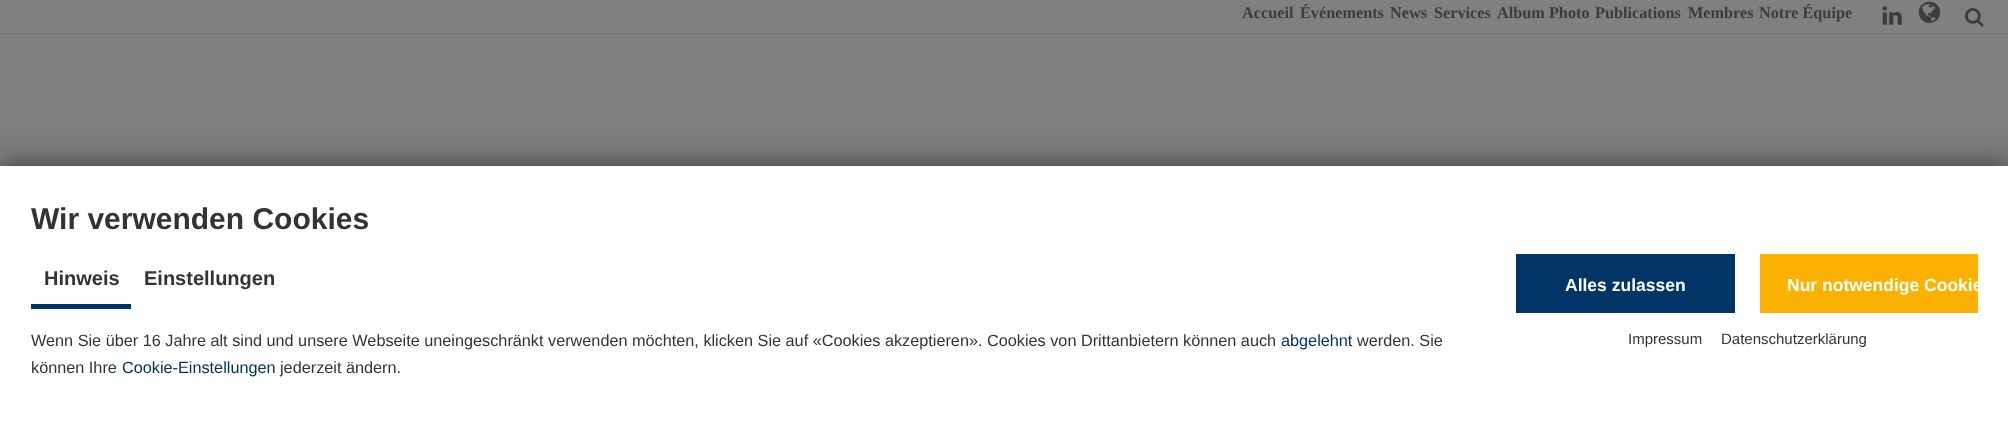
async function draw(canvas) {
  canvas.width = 2008;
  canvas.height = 441;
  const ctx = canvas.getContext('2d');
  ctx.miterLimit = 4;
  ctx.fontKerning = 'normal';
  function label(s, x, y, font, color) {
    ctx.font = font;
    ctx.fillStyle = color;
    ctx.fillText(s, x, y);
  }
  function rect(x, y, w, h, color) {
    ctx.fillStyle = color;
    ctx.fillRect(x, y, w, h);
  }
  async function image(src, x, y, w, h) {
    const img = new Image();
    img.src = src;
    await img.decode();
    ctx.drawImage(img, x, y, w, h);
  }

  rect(0, 0, 2008, 441, '#808080');
  rect(0, 33, 2008, 1, '#737373');
  label('Accueil', 1242, 18, 'bold 16.25px Liberation Serif', '#3c3c3c');
  label('Événements', 1300, 18, 'bold 16.25px Liberation Serif', '#3c3c3c');
  label('News', 1390, 18, 'bold 16.25px Liberation Serif', '#3c3c3c');
  label('Services', 1434, 18, 'bold 16.25px Liberation Serif', '#3c3c3c');
  label('Album Photo', 1497, 18, 'bold 16.25px Liberation Serif', '#3c3c3c');
  label('Publications', 1595, 18, 'bold 16.25px Liberation Serif', '#3c3c3c');
  label('Membres', 1688, 18, 'bold 16.25px Liberation Serif', '#3c3c3c');
  label('Notre Équipe', 1759, 18, 'bold 16.25px Liberation Serif', '#3c3c3c');
  await image('assets/img1.png', 1882, 6, 20, 19);
  await image('assets/img2.png', 1918, 1, 23, 22);
  await image('assets/img3.png', 1965, 8, 19, 19);
  rect(0, 129, 2008, 37, '#7d7d7d');
  ctx.fillStyle = '#00000099';
  ctx.filter = 'blur(12.5px)';
  ctx.beginPath();
  ctx.rect(0, 166, 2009, 275);
  ctx.fill();
  ctx.filter = 'none';
  rect(0, 166, 2008, 275, '#fff');
  label('Wir verwenden Cookies', 31, 229, 'bold 30px Liberation Sans', '#333');
  rect(31, 304, 100, 5, '#003466');
  label('Hinweis', 44, 285, 'bold 20px Liberation Sans', '#333');
  label('Einstellungen', 144, 285, 'bold 20px Liberation Sans', '#333');
  label('Wenn Sie über 16 Jahre alt sind und unsere Webseite uneingeschränkt verwenden möchten, klicken Sie auf «Cookies akzeptieren». Cookies von Drittanbietern können auch', 31, 346, '16.25px Liberation Sans', '#333');
  label('abgelehnt', 1281, 346, '16.25px Liberation Sans', '#003466');
  label('werden. Sie', 1357, 346, '16.25px Liberation Sans', '#333');
  label('können Ihre', 31, 373, '16.25px Liberation Sans', '#333');
  label('Cookie-Einstellungen', 122, 373, '16.25px Liberation Sans', '#003466');
  label('jederzeit ändern.', 280, 373, '16.25px Liberation Sans', '#333');
  rect(1516, 254, 219, 59, '#003466');
  label('Alles zulassen', 1565, 291, 'bold 17.5px Liberation Sans', '#fff');
  rect(1760, 254, 218, 59, '#fcb100');
  label('Nur notwendige Cookie', 1787, 291, 'bold 17.5px Liberation Sans', '#fff');
  label('Impressum', 1628, 344, '15px Liberation Sans', '#333');
  label('Datenschutzerklärung', 1721, 344, '15px Liberation Sans', '#333');
}

draw(document.querySelector('canvas'));
